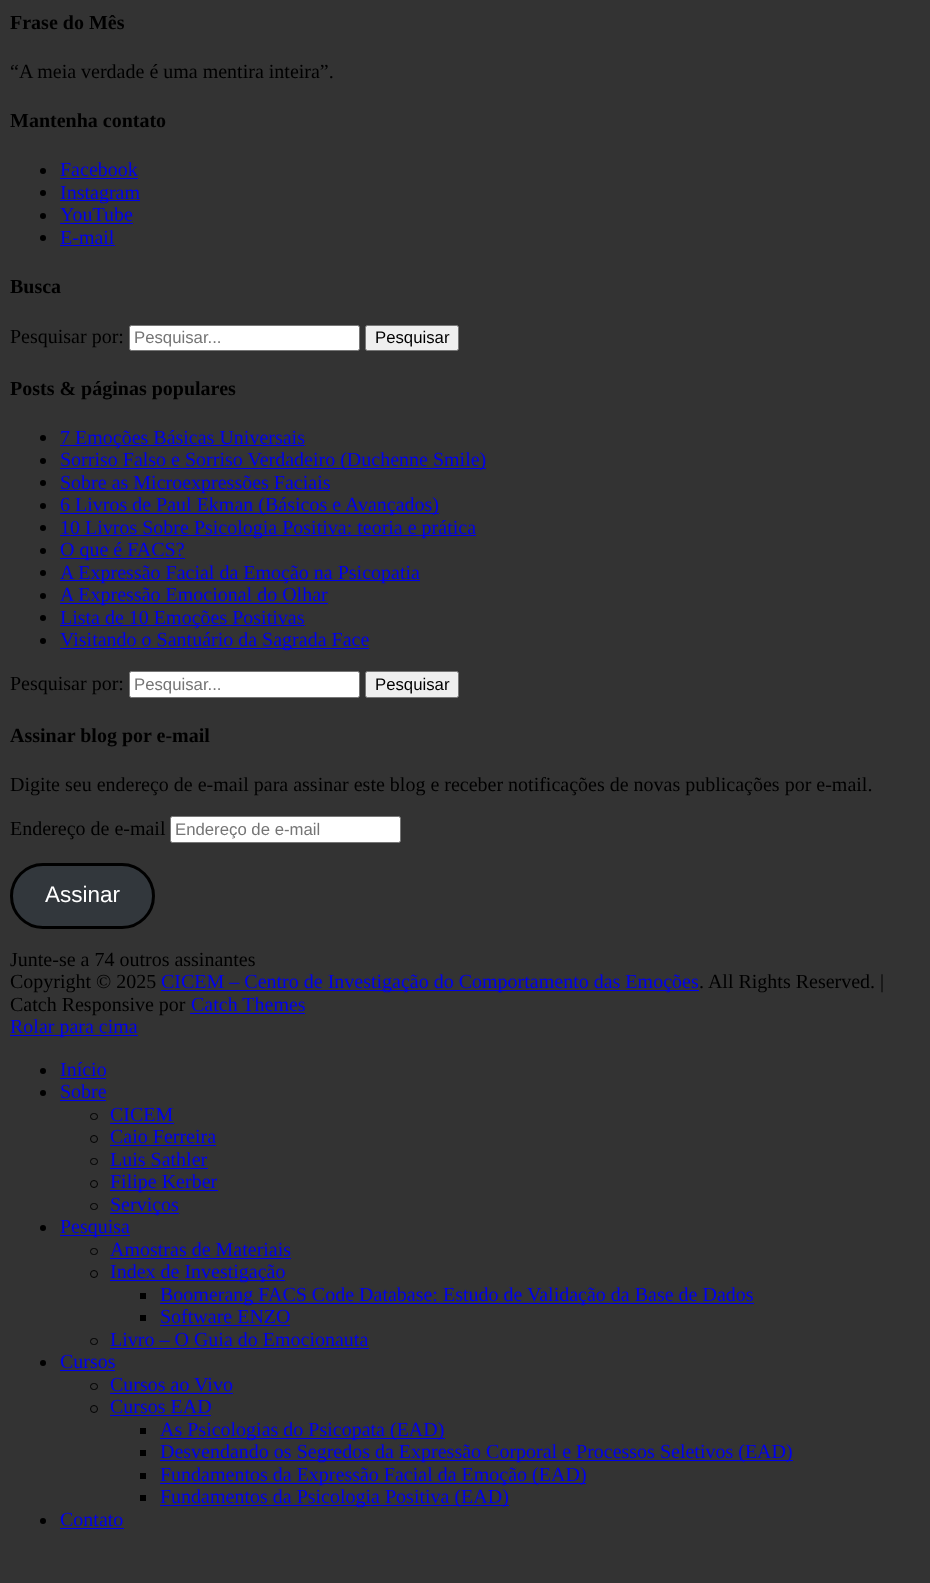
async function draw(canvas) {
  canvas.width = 930;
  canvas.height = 1583;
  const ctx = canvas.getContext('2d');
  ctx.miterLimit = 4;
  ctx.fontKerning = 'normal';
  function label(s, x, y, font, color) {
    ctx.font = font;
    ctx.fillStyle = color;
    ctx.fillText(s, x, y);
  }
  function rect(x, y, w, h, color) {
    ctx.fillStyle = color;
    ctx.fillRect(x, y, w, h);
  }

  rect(0, 0, 930, 1583, '#333');
  label('Frase do Mês', 10, 29, 'bold 20px Liberation Serif', '#000');
  label('“A meia verdade é uma mentira inteira”.', 10, 78, '20px Liberation Serif', '#000');
  label('Mantenha contato', 10, 127, 'bold 20px Liberation Serif', '#000');
  ctx.beginPath();
  ctx.arc(43, 171, 3, 0, 2 * Math.PI);
  ctx.fill();
  label('Facebook', 60, 176, '20px Liberation Serif', '#00e');
  rect(60, 178, 78, 1, '#00e');
  ctx.fillStyle = '#000';
  ctx.beginPath();
  ctx.arc(43, 193, 3, 0, 2 * Math.PI);
  ctx.fill();
  rect(60, 200, 80, 1, '#00e');
  label('Instagram', 60, 199, '20px Liberation Serif', '#00e');
  ctx.fillStyle = '#000';
  ctx.beginPath();
  ctx.arc(43, 216, 3, 0, 2 * Math.PI);
  ctx.fill();
  label('YouTube', 60, 221, '20px Liberation Serif', '#00e');
  rect(60, 223, 73, 1, '#00e');
  ctx.fillStyle = '#000';
  ctx.beginPath();
  ctx.arc(43, 238, 3, 0, 2 * Math.PI);
  ctx.fill();
  label('E-mail', 60, 244, '20px Liberation Serif', '#00e');
  rect(60, 245, 55, 1, '#00e');
  label('Busca', 10, 293, 'bold 20px Liberation Serif', '#000');
  label('Pesquisar por:', 10, 343, '20px Liberation Serif', '#000');
  ctx.fillStyle = '#fff';
  ctx.beginPath();
  ctx.roundRect(129.5, 325.5, 230, 25, 2);
  ctx.fill();
  ctx.strokeStyle = '#767676';
  ctx.stroke();
  label('Pesquisar...', 134, 343, '16.75px Liberation Sans', '#757575');
  ctx.fillStyle = '#efefef';
  ctx.beginPath();
  ctx.roundRect(365.5, 325.5, 93, 25, 2);
  ctx.fill();
  ctx.stroke();
  label('Pesquisar', 375, 343, '16.75px Liberation Sans', '#000');
  label('Posts & páginas populares', 10, 395, 'bold 20px Liberation Serif', '#000');
  ctx.beginPath();
  ctx.arc(43, 438, 3, 0, 2 * Math.PI);
  ctx.fill();
  rect(60, 445, 245, 1, '#00e');
  label('7 Emoções Básicas Universais', 60, 444, '20px Liberation Serif', '#00e');
  ctx.fillStyle = '#000';
  ctx.beginPath();
  ctx.arc(43, 461, 3, 0, 2 * Math.PI);
  ctx.fill();
  rect(60, 468, 426, 1, '#00e');
  label('Sorriso Falso e Sorriso Verdadeiro (Duchenne Smile)', 60, 466, '20px Liberation Serif', '#00e');
  ctx.fillStyle = '#000';
  ctx.beginPath();
  ctx.arc(43, 483, 3, 0, 2 * Math.PI);
  ctx.fill();
  rect(60, 490, 270, 1, '#00e');
  label('Sobre as Microexpressões Faciais', 60, 489, '20px Liberation Serif', '#00e');
  ctx.fillStyle = '#000';
  ctx.beginPath();
  ctx.arc(43, 506, 3, 0, 2 * Math.PI);
  ctx.fill();
  rect(60, 513, 379, 1, '#00e');
  label('6 Livros de Paul Ekman (Básicos e Avançados)', 60, 511, '20px Liberation Serif', '#00e');
  ctx.fillStyle = '#000';
  ctx.beginPath();
  ctx.arc(43, 528, 3, 0, 2 * Math.PI);
  ctx.fill();
  rect(60, 535, 416, 1, '#00e');
  label('10 Livros Sobre Psicologia Positiva: teoria e prática', 60, 534, '20px Liberation Serif', '#00e');
  ctx.fillStyle = '#000';
  ctx.beginPath();
  ctx.arc(43, 551, 3, 0, 2 * Math.PI);
  ctx.fill();
  rect(60, 558, 125, 1, '#00e');
  label('O que é FACS?', 60, 556, '20px Liberation Serif', '#00e');
  ctx.fillStyle = '#000';
  ctx.beginPath();
  ctx.arc(43, 573, 3, 0, 2 * Math.PI);
  ctx.fill();
  rect(60, 580, 360, 1, '#00e');
  label('A Expressão Facial da Emoção na Psicopatia', 60, 579, '20px Liberation Serif', '#00e');
  ctx.fillStyle = '#000';
  ctx.beginPath();
  ctx.arc(43, 596, 3, 0, 2 * Math.PI);
  ctx.fill();
  rect(60, 603, 268, 1, '#00e');
  label('A Expressão Emocional do Olhar', 60, 601, '20px Liberation Serif', '#00e');
  ctx.fillStyle = '#000';
  ctx.beginPath();
  ctx.arc(43, 618, 3, 0, 2 * Math.PI);
  ctx.fill();
  rect(60, 625, 245, 1, '#00e');
  label('Lista de 10 Emoções Positivas', 60, 624, '20px Liberation Serif', '#00e');
  ctx.fillStyle = '#000';
  ctx.beginPath();
  ctx.arc(43, 641, 3, 0, 2 * Math.PI);
  ctx.fill();
  rect(60, 648, 309, 1, '#00e');
  label('Visitando o Santuário da Sagrada Face', 60, 646, '20px Liberation Serif', '#00e');
  label('Pesquisar por:', 10, 690, '20px Liberation Serif', '#000');
  ctx.fillStyle = '#fff';
  ctx.beginPath();
  ctx.roundRect(129.5, 671.5, 230, 26, 2);
  ctx.fill();
  ctx.stroke();
  label('Pesquisar...', 134, 690, '16.75px Liberation Sans', '#757575');
  ctx.fillStyle = '#efefef';
  ctx.beginPath();
  ctx.roundRect(365.5, 671.5, 93, 26, 2);
  ctx.fill();
  ctx.stroke();
  label('Pesquisar', 375, 690, '16.75px Liberation Sans', '#000');
  label('Assinar blog por e-mail', 10, 742, 'bold 20px Liberation Serif', '#000');
  label('Digite seu endereço de e-mail para assinar este blog e receber notificações de novas publicações por e-mail.', 10, 791, '20px Liberation Serif', '#000');
  label('Endereço de e-mail', 10, 835, '20px Liberation Serif', '#000');
  ctx.fillStyle = '#fff';
  ctx.beginPath();
  ctx.roundRect(170.5, 816.5, 230, 26, 2);
  ctx.fill();
  ctx.stroke();
  label('Endereço de e-mail', 175, 835, '16.75px Liberation Sans', '#757575');
  ctx.fillStyle = '#32373c';
  ctx.beginPath();
  ctx.roundRect(11.5, 864.5, 142, 63, 31.5);
  ctx.fill();
  ctx.strokeStyle = '#000';
  ctx.lineWidth = 3;
  ctx.stroke();
  label('Assinar', 45, 902, '22.5px Liberation Sans', '#fff');
  label('Junte-se a 74 outros assinantes', 10, 966, '20px Liberation Serif', '#000');
  label('Copyright © 2025', 10, 988, '20px Liberation Serif', '#000');
  rect(161, 990, 538, 1, '#00e');
  label('CICEM – Centro de Investigação do Comportamento das Emoções', 161, 988, '20px Liberation Serif', '#00e');
  label('. All Rights Reserved. |', 699, 988, '20px Liberation Serif', '#000');
  label('Catch Responsive por', 10, 1011, '20px Liberation Serif', '#000');
  label('Catch Themes', 191, 1011, '20px Liberation Serif', '#00e');
  rect(190, 1013, 115, 1, '#00e');
  rect(10, 1035, 128, 1, '#00e');
  label('Rolar para cima', 10, 1033, '20px Liberation Serif', '#00e');
  ctx.fillStyle = '#000';
  ctx.beginPath();
  ctx.arc(43, 1071, 3, 0, 2 * Math.PI);
  ctx.fill();
  label('Início', 60, 1076, '20px Liberation Serif', '#00e');
  rect(60, 1078, 46, 1, '#00e');
  ctx.fillStyle = '#000';
  ctx.beginPath();
  ctx.arc(43, 1093, 3, 0, 2 * Math.PI);
  ctx.fill();
  label('Sobre', 60, 1098, '20px Liberation Serif', '#00e');
  rect(60, 1100, 46, 1, '#00e');
  ctx.beginPath();
  ctx.roundRect(90.5, 1113.5, 7, 6, 3);
  ctx.lineWidth = 1;
  ctx.stroke();
  label('CICEM', 110, 1121, '20px Liberation Serif', '#00e');
  rect(110, 1123, 64, 1, '#00e');
  ctx.beginPath();
  ctx.arc(94, 1139, 3.5, 0, 2 * Math.PI);
  ctx.stroke();
  label('Caio Ferreira', 110, 1143, '20px Liberation Serif', '#00e');
  rect(110, 1145, 106, 1, '#00e');
  ctx.beginPath();
  ctx.roundRect(90.5, 1158.5, 7, 6, 3);
  ctx.stroke();
  label('Luis Sathler', 110, 1166, '20px Liberation Serif', '#00e');
  rect(110, 1168, 98, 1, '#00e');
  ctx.beginPath();
  ctx.arc(94, 1184, 3.5, 0, 2 * Math.PI);
  ctx.stroke();
  rect(110, 1190, 108, 1, '#00e');
  label('Filipe Kerber', 110, 1188, '20px Liberation Serif', '#00e');
  ctx.beginPath();
  ctx.roundRect(90.5, 1203.5, 7, 6, 3);
  ctx.stroke();
  rect(110, 1213, 69, 1, '#00e');
  label('Serviços', 110, 1211, '20px Liberation Serif', '#00e');
  ctx.fillStyle = '#000';
  ctx.beginPath();
  ctx.arc(43, 1228, 3, 0, 2 * Math.PI);
  ctx.fill();
  rect(60, 1235, 70, 1, '#00e');
  label('Pesquisa', 60, 1233, '20px Liberation Serif', '#00e');
  ctx.beginPath();
  ctx.roundRect(90.5, 1248.5, 7, 6, 3);
  ctx.stroke();
  label('Amostras de Materiais', 110, 1256, '20px Liberation Serif', '#00e');
  rect(110, 1258, 181, 1, '#00e');
  ctx.beginPath();
  ctx.arc(94, 1274, 3.5, 0, 2 * Math.PI);
  ctx.stroke();
  rect(110, 1280, 175, 1, '#00e');
  label('Index de Investigação', 110, 1278, '20px Liberation Serif', '#00e');
  rect(140, 1293, 6, 6, '#000');
  rect(160, 1303, 594, 1, '#00e');
  label('Boomerang FACS Code Database: Estudo de Validação da Base de Dados', 160, 1301, '20px Liberation Serif', '#00e');
  rect(140, 1315, 6, 6, '#000');
  label('Software ENZO', 160, 1323, '20px Liberation Serif', '#00e');
  rect(160, 1325, 130, 1, '#00e');
  ctx.beginPath();
  ctx.roundRect(90.5, 1338.5, 7, 6, 3);
  ctx.stroke();
  label('Livro – O Guia do Emocionauta', 110, 1346, '20px Liberation Serif', '#00e');
  rect(110, 1348, 259, 1, '#00e');
  ctx.fillStyle = '#000';
  ctx.beginPath();
  ctx.arc(43, 1363, 3, 0, 2 * Math.PI);
  ctx.fill();
  label('Cursos', 60, 1368, '20px Liberation Serif', '#00e');
  rect(60, 1370, 55, 1, '#00e');
  ctx.beginPath();
  ctx.roundRect(90.5, 1383.5, 7, 6, 3);
  ctx.stroke();
  label('Cursos ao Vivo', 110, 1391, '20px Liberation Serif', '#00e');
  rect(110, 1393, 123, 1, '#00e');
  ctx.beginPath();
  ctx.arc(94, 1409, 3.5, 0, 2 * Math.PI);
  ctx.stroke();
  label('Cursos EAD', 110, 1413, '20px Liberation Serif', '#00e');
  rect(110, 1415, 101, 1, '#00e');
  rect(140, 1428, 6, 6, '#000');
  rect(160, 1438, 285, 1, '#00e');
  label('As Psicologias do Psicopata (EAD)', 160, 1436, '20px Liberation Serif', '#00e');
  rect(140, 1450, 6, 6, '#000');
  rect(160, 1460, 633, 1, '#00e');
  label('Desvendando os Segredos da Expressão Corporal e Processos Seletivos (EAD)', 160, 1458, '20px Liberation Serif', '#00e');
  rect(140, 1473, 6, 6, '#000');
  rect(160, 1483, 426, 1, '#00e');
  label('Fundamentos da Expressão Facial da Emoção (EAD)', 160, 1481, '20px Liberation Serif', '#00e');
  rect(140, 1495, 6, 6, '#000');
  rect(160, 1505, 349, 1, '#00e');
  label('Fundamentos da Psicologia Positiva (EAD)', 160, 1503, '20px Liberation Serif', '#00e');
  ctx.fillStyle = '#000';
  ctx.beginPath();
  ctx.arc(43, 1521, 3, 0, 2 * Math.PI);
  ctx.fill();
  label('Contato', 60, 1526, '20px Liberation Serif', '#00e');
  rect(60, 1528, 64, 1, '#00e');
}

draw(document.querySelector('canvas'));
